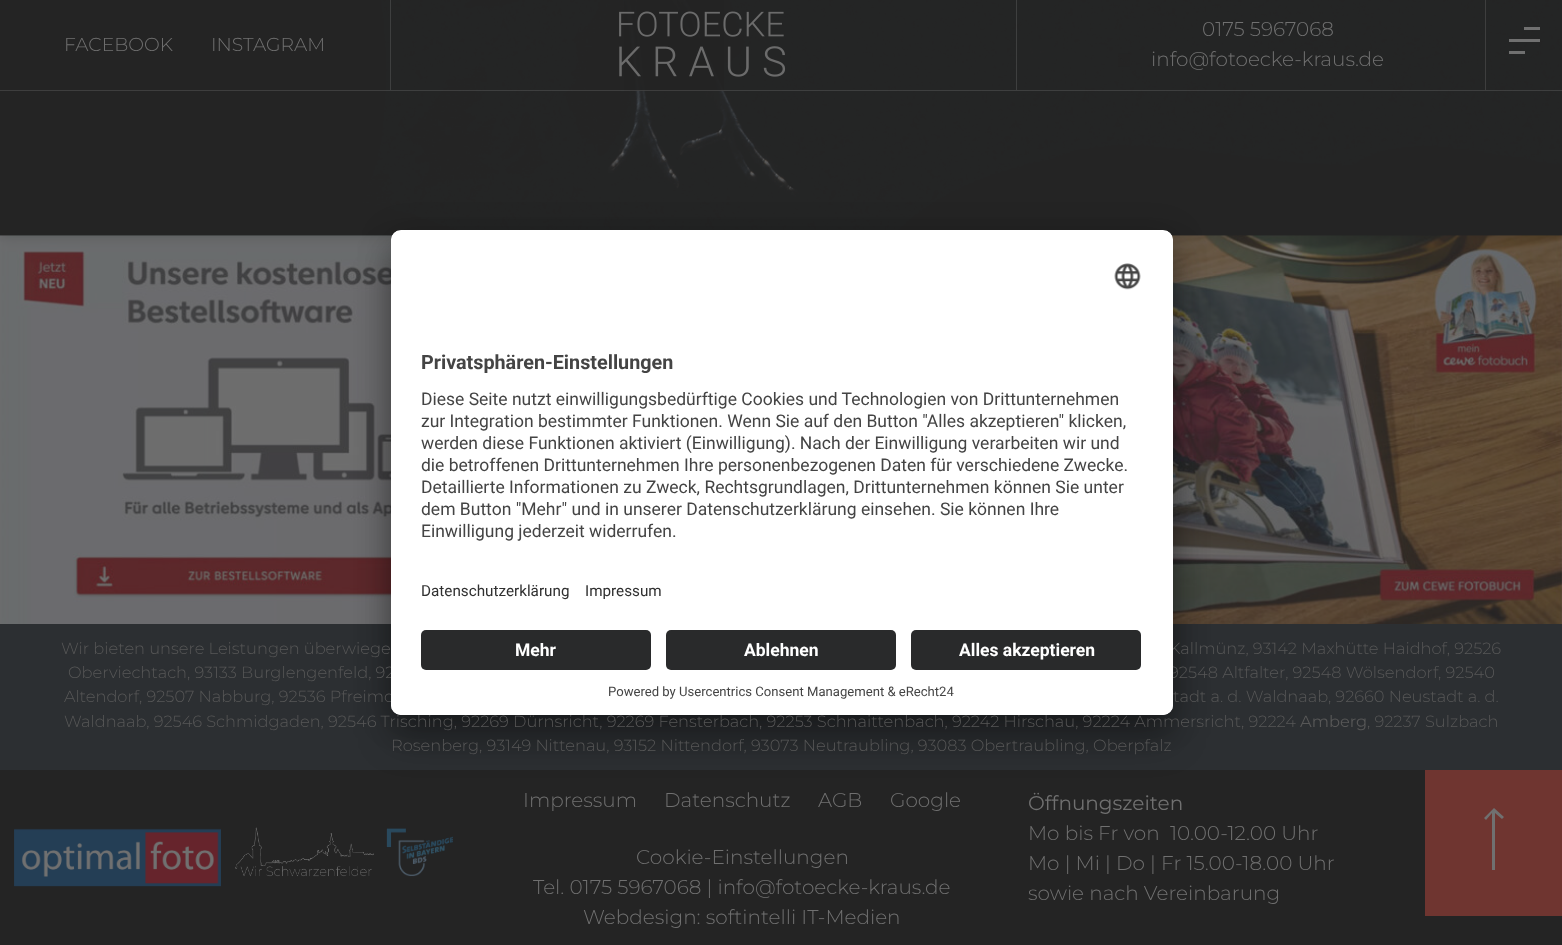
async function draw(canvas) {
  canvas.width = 1562;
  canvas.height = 945;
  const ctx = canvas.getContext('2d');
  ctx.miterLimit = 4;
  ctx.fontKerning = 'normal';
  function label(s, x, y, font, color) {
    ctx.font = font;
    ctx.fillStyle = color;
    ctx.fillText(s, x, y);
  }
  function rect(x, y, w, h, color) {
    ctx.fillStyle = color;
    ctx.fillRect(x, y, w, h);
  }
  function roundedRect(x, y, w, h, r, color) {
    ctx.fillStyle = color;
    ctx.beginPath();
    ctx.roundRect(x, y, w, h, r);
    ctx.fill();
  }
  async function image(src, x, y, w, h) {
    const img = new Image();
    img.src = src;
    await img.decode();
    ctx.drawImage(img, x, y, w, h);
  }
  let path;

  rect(0, 0, 1562, 945, '#242424');
  await image('assets/img5.png', 0, 235, 1562, 389);
  await image('assets/img1.png', 0, 0, 1562, 236);
  rect(624, 0, 100, 91, '#242424e6');
  rect(0, 90, 1562, 1, '#70707059');
  rect(390, 0, 1, 90, '#3e3f3f');
  label('FACEBOOK', 64, 51, '100 18.75px Montserrat', '#707070');
  label('INSTAGRAM', 211, 51, '100 18.75px Montserrat', '#707070');
  await image('assets/img2.png', 619, 11, 167, 66);
  rect(1016, 0, 1, 90, '#70707059');
  label('0175 5967068', 1202, 36, '100 20px Montserrat', '#707070');
  await image('assets/img3.png', 1118, 53, 12, 14);
  label('info@fotoecke-kraus.de', 1151, 66, '100 20px Montserrat', '#707070');
  rect(1485, 0, 1, 90, '#3e3e3e');
  rect(1509, 51, 16, 3, '#707070');
  rect(1524, 27, 16, 3, '#707070');
  rect(1509, 39, 31, 3, '#707070');
  rect(0, 624, 1562, 146, '#2c2f32');
  ctx.fillStyle = '#0000004d';
  ctx.filter = 'blur(17.5px)';
  ctx.beginPath();
  ctx.roundRect(391, 255, 782, 485, 10);
  ctx.fill();
  ctx.filter = 'none';
  ctx.fillStyle = '#00000038';
  ctx.filter = 'blur(16px)';
  ctx.beginPath();
  ctx.roundRect(391, 236, 782, 485, 10);
  ctx.fill();
  ctx.filter = 'none';
  label('Kallmünz, 93142 Maxhütte Haidhof, 92526', 1169, 654, '100 16.25px Montserrat', '#575757');
  label('Oberviechtach, 93133 Burglengenfeld, 92', 68, 678, '100 16.25px Montserrat', '#575757');
  label('92548 Altfalter, 92548 Wölsendorf, 92540', 1169, 678, '100 16.25px Montserrat', '#575757');
  label('Altendorf, 92507 Nabburg, 92536 Pfreimd', 64, 702, '100 16.25px Montserrat', '#575757');
  label('Waldnaab, 92546 Schmidgaden, 92546 Trisching, 92269 Dürnsricht, 92269 Fensterbach, 92253 Schnaittenbach, 92242 Hirschau, 92224 Ammersricht, 92224', 64, 727, '100 16.25px Montserrat', '#575757');
  roundedRect(391, 230, 782, 485, 10, '#fff');
  ctx.save();
  ctx.beginPath();
  ctx.roundRect(391, 230, 782, 485, 10);
  ctx.clip();
  ctx.beginPath();
  ctx.roundRect(391, 230, 782, 390, [10, 10, 0, 0]);
  ctx.clip();
  rect(391, 231, 782, 389, '#fff');
  ctx.restore();
  await image('assets/img4.png', 1114, 263, 27, 27);
  label('Privatsphären-Einstellungen', 421, 369, 'bold 19.75px Roboto', '#444');
  label('Diese Seite nutzt einwilligungsbedürftige Cookies und Technologien von Drittunternehmen', 421, 405, '17.5px Roboto', '#444');
  label('zur Integration bestimmter Funktionen. Wenn Sie auf den Button "Alles akzeptieren" klicken,', 421, 427, '17.5px Roboto', '#444');
  label('werden diese Funktionen aktiviert (Einwilligung). Nach der Einwilligung verarbeiten wir und', 421, 449, '17.5px Roboto', '#444');
  label('die betroffenen Drittunternehmen Ihre personenbezogenen Daten für verschiedene Zwecke.', 421, 471, '17.5px Roboto', '#444');
  label('Detaillierte Informationen zu Zweck, Rechtsgrundlagen, Drittunternehmen können Sie unter', 421, 493, '17.5px Roboto', '#444');
  label('dem Button "Mehr" und in unserer Datenschutzerklärung einsehen. Sie können Ihre', 421, 515, '17.5px Roboto', '#444');
  label('Einwilligung jederzeit widerrufen.', 421, 537, '17.5px Roboto', '#444');
  label('Datenschutzerklärung', 421, 596, '15.25px Roboto', '#303030');
  label('Impressum', 585, 596, '15.25px Roboto', '#303030');
  ctx.fillStyle = '#fff';
  ctx.beginPath();
  ctx.roundRect(391, 620, 782, 95, [0, 0, 10, 10]);
  ctx.fill();
  roundedRect(421, 630, 230, 40, 5, '#292a2b');
  label('Mehr', 515, 656, 'bold 17.5px Roboto', '#fff');
  roundedRect(666, 630, 230, 40, 5, '#292a2b');
  label('Ablehnen', 744, 656, 'bold 17.5px Roboto', '#fff');
  roundedRect(911, 630, 230, 40, 5, '#292a2b');
  label('Alles akzeptieren', 959, 656, 'bold 17.5px Roboto', '#fff');
  label('Powered by Usercentrics Consent Management & eRecht24', 608, 696, '13.1px Roboto', '#444');
  label('Wir bieten unsere Leistungen überwiege', 61, 654, '100 16.25px Montserrat', '#575757');
  label('tadt a. d. Waldnaab, 92660 Neustadt a. d.', 1173, 702, '100 16.25px Montserrat', '#575757');
  label('Amberg', 1300, 727, '100 16.25px "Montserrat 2"', '#575757');
  label(', 92237 Sulzbach', 1367, 727, '100 16.25px Montserrat', '#575757');
  label('Rosenberg, 93149 Nittenau, 93152 Nittendorf, 93073 Neutraubling, 93083 Obertraubling, Oberpfalz', 391, 751, '100 16.25px Montserrat', '#575757');
  await image('assets/img6.png', 14, 828, 207, 59);
  await image('assets/img7.png', 235, 827, 139, 50);
  await image('assets/img8.png', 386, 828, 67, 49);
  label('Impressum', 523, 807, '100 20px Montserrat', '#707070');
  label('Datenschutz', 664, 807, '100 20px Montserrat', '#707070');
  label('AGB', 818, 807, '100 20px Montserrat', '#707070');
  label('Google', 890, 807, '100 20px Montserrat', '#707070');
  label('Cookie-Einstellungen', 636, 864, '100 20px Montserrat', '#707070');
  label('Tel. 0175 5967068 | info@fotoecke-kraus.de', 533, 894, '100 20px Montserrat', '#707070');
  label('Webdesign: softintelli IT-Medien', 583, 924, '100 20px Montserrat', '#707070');
  label('Öffnungszeiten', 1028, 810, '100 20px "Montserrat 2"', '#707070');
  label('Mo bis Fr von  10.00-12.00 Uhr', 1028, 840, '100 20px Montserrat', '#707070');
  label('Mo | Mi | Do | Fr 15.00-18.00 Uhr', 1028, 870, '100 20px Montserrat', '#707070');
  label('sowie nach Vereinbarung', 1028, 900, '100 20px Montserrat', '#707070');
  rect(1425, 770, 137, 146, '#6f3530');
  ctx.fillStyle = '#707070';
  path = new Path2D('M1494 808L1484 818L1486 820L1492 813V870H1495V813L1502 819L1504 817Z');
  ctx.fill(path, 'evenodd');
}

draw(document.querySelector('canvas'));
